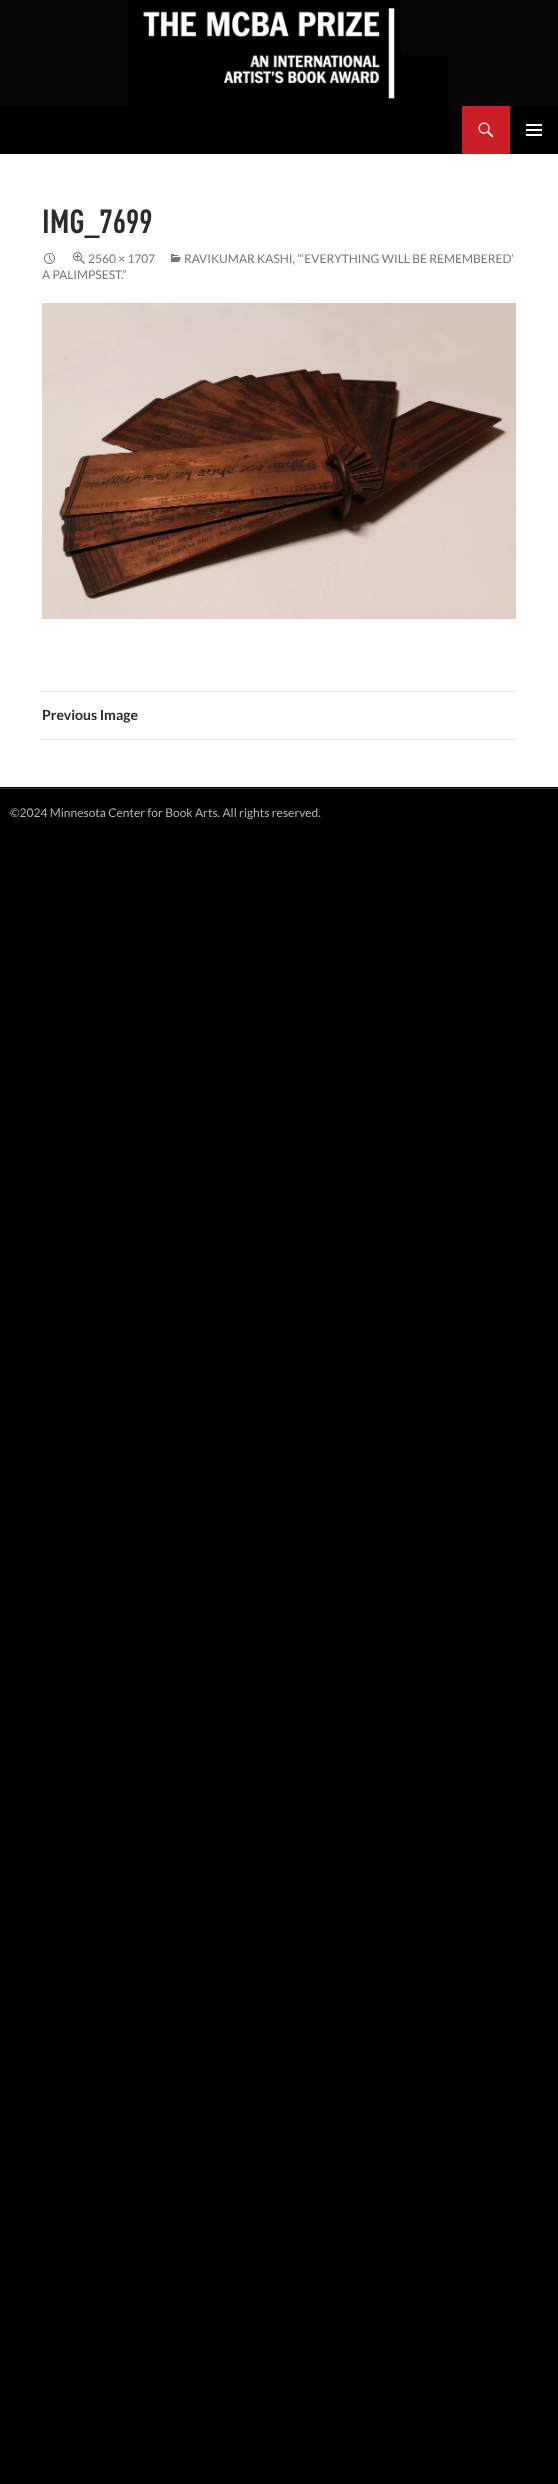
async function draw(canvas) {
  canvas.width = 558;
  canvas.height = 2484;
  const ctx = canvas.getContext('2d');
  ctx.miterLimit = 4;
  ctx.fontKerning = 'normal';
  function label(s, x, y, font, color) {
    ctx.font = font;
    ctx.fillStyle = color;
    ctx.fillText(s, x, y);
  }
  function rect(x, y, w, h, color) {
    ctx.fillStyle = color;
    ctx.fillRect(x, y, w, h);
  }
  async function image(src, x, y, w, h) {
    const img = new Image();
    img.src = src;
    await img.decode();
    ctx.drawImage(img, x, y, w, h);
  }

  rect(0, 0, 558, 2484, '#000');
  rect(0, 154, 558, 633, '#fff');
  await image('assets/img1.png', 0, 0, 558, 106);
  rect(462, 106, 48, 48, '#cc1e27');
  await image('assets/img2.png', 478, 122, 16, 16);
  await image('assets/img3.png', 526, 124, 16, 12);
  label('IMG_7699', 42, 233, 'bold 33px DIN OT', '#2b2b2b');
  await image('assets/img4.png', 171, 254, 10, 8);
  label('RAVIKUMAR KASHI, “‘EVERYTHING WILL BE REMEMBERED’', 184, 263, '12px Lato', '#767676');
  label('A PALIMPSEST.”', 42, 279, '12px Lato', '#767676');
  await image('assets/img5.png', 44, 253, 11, 11);
  await image('assets/img6.png', 73, 252, 12, 12);
  label('2560 × 1707', 88, 263, '12px Lato', '#767676');
  await image('assets/img7.png', 42, 303, 474, 316);
  rect(42, 691, 474, 1, '#e6e6e6');
  rect(42, 739, 474, 1, '#e6e6e6');
  label('Previous Image', 42, 720, 'bold 14px Lato', '#2b2b2b');
  rect(0, 788, 558, 1, '#333');
  label('©2024 Minnesota Center for Book Arts. All rights reserved.', 10, 817, '12px Lato', '#b3b3b3');
}

draw(document.querySelector('canvas'));
